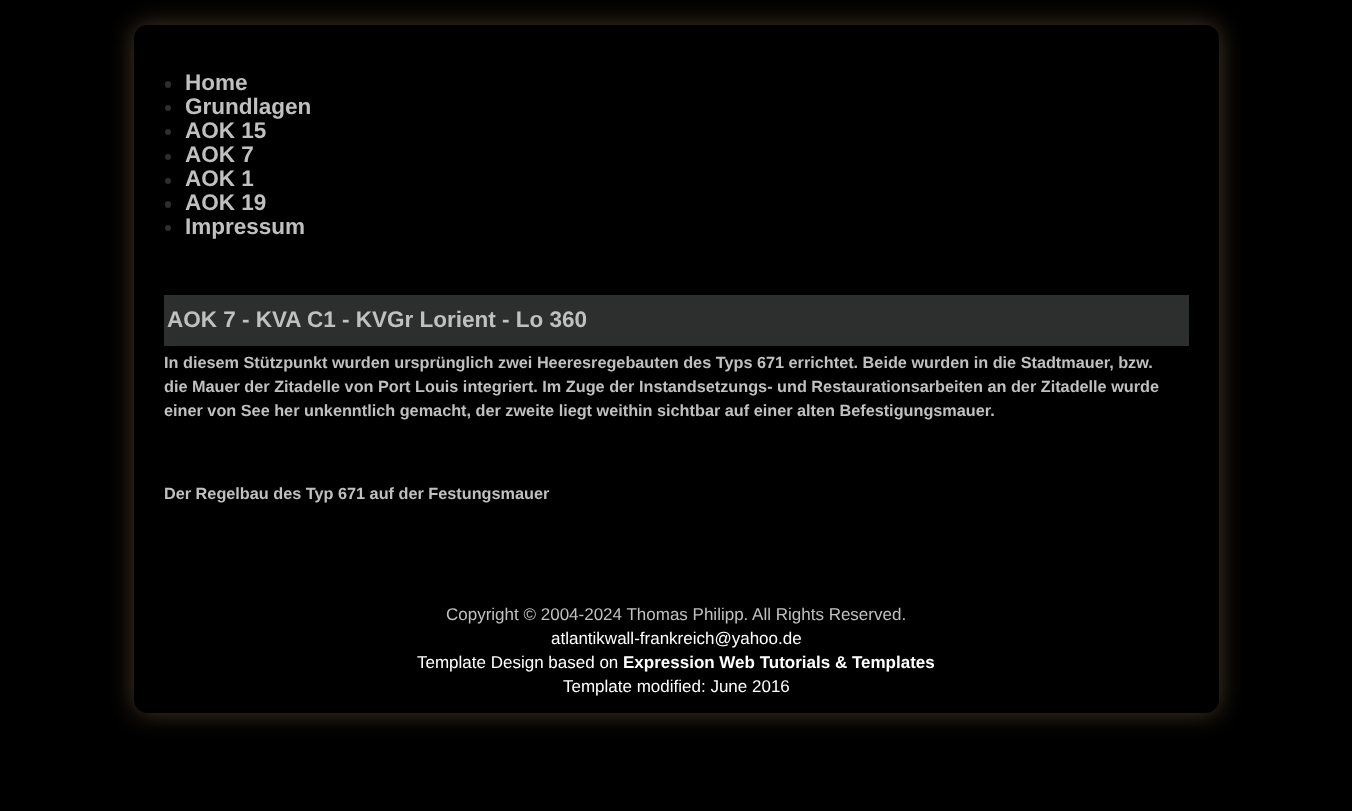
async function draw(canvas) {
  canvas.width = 1352;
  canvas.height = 811;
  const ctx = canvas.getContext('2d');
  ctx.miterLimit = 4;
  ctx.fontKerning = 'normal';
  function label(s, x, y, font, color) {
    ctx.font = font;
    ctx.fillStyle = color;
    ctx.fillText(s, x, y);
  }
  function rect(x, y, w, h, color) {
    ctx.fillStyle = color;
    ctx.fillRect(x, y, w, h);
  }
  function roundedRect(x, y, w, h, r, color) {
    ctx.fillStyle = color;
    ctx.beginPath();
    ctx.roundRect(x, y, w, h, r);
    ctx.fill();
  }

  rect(0, 0, 1352, 811, '#000');
  ctx.fillStyle = '#453823';
  ctx.filter = 'blur(12.5px)';
  ctx.beginPath();
  ctx.roundRect(134, 25, 1085, 688, 13);
  ctx.fill();
  ctx.filter = 'none';
  ctx.fillStyle = '#000';
  ctx.beginPath();
  ctx.roundRect(134.5, 25.5, 1084, 687, 12.5);
  ctx.fill();
  ctx.strokeStyle = '#000';
  ctx.stroke();
  roundedRect(165, 81, 6, 7, 3, '#2d2e2e');
  label('Home', 185, 90, 'bold 22.5px Liberation Sans', '#c0c0c0');
  ctx.fillStyle = '#2d2e2e';
  ctx.beginPath();
  ctx.arc(168, 108, 3, 0, 2 * Math.PI);
  ctx.fill();
  label('Grundlagen', 185, 114, 'bold 22.5px Liberation Sans', '#c0c0c0');
  ctx.fillStyle = '#2d2e2e';
  ctx.beginPath();
  ctx.arc(168, 132, 3, 0, 2 * Math.PI);
  ctx.fill();
  label('AOK 15', 185, 138, 'bold 22.5px Liberation Sans', '#c0c0c0');
  ctx.fillStyle = '#2d2e2e';
  ctx.beginPath();
  ctx.arc(168, 157, 3, 0, 2 * Math.PI);
  ctx.fill();
  label('AOK 7', 185, 162, 'bold 22.5px Liberation Sans', '#c0c0c0');
  ctx.fillStyle = '#2d2e2e';
  ctx.beginPath();
  ctx.arc(168, 181, 3, 0, 2 * Math.PI);
  ctx.fill();
  label('AOK 1', 185, 186, 'bold 22.5px Liberation Sans', '#c0c0c0');
  roundedRect(165, 201, 6, 7, 3, '#2d2e2e');
  label('AOK 19', 185, 210, 'bold 22.5px Liberation Sans', '#c0c0c0');
  ctx.fillStyle = '#2d2e2e';
  ctx.beginPath();
  ctx.arc(168, 228, 3, 0, 2 * Math.PI);
  ctx.fill();
  label('Impressum', 185, 234, 'bold 22.5px Liberation Sans', '#c0c0c0');
  rect(164, 295, 1025, 51, '#2d2e2e');
  label('AOK 7 - KVA C1 - KVGr Lorient - Lo 360', 167, 327, 'bold 22.5px Liberation Sans', '#c0c0c0');
  label('In diesem Stützpunkt wurden ursprünglich zwei Heeresregebauten des Typs 671 errichtet. Beide wurden in die Stadtmauer, bzw.', 164, 368, 'bold 16.25px Liberation Sans', '#c0c0c0');
  label('die Mauer der Zitadelle von Port Louis integriert. Im Zuge der Instandsetzungs- und Restaurationsarbeiten an der Zitadelle wurde', 164, 392, 'bold 16.25px Liberation Sans', '#c0c0c0');
  label('einer von See her unkenntlich gemacht, der zweite liegt weithin sichtbar auf einer alten Befestigungsmauer.', 164, 416, 'bold 16.25px Liberation Sans', '#c0c0c0');
  label('Der Regelbau des Typ 671 auf der Festungsmauer', 164, 499, 'bold 16.25px Liberation Sans', '#c0c0c0');
  label('Copyright © 2004-2024 Thomas Philipp. All Rights Reserved.', 446, 620, '17px Liberation Sans', '#c0c0c0');
  label('atlantikwall-frankreich@yahoo.de', 551, 644, '17px Liberation Sans', '#fff');
  label('Template Design based on', 417, 668, '17px Liberation Sans', '#fff');
  label('Expression Web Tutorials & Templates', 623, 668, 'bold 17px Liberation Sans', '#fff');
  label('Template modified: June 2016', 563, 692, '17px Liberation Sans', '#fff');
}

draw(document.querySelector('canvas'));
